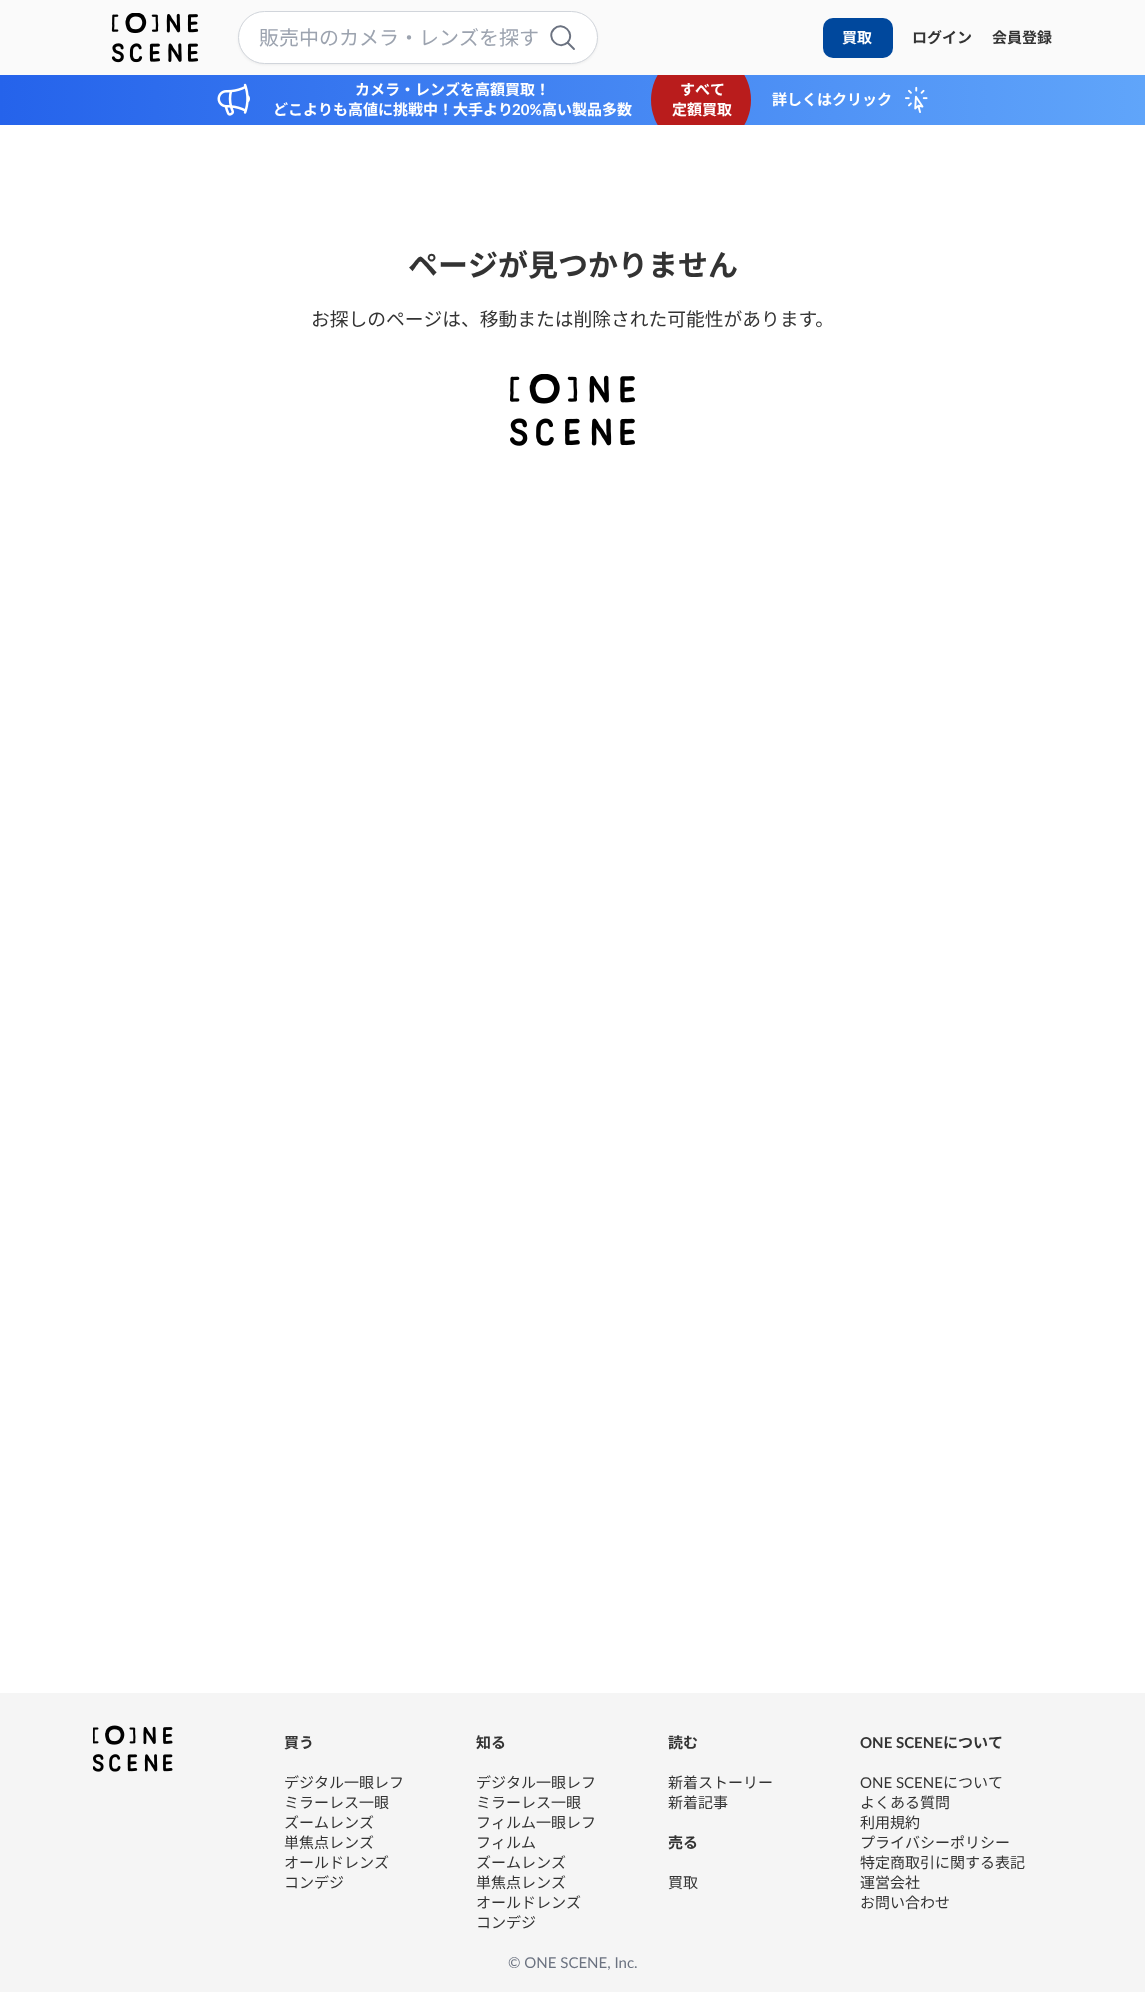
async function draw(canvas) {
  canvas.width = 1145;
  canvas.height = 1992;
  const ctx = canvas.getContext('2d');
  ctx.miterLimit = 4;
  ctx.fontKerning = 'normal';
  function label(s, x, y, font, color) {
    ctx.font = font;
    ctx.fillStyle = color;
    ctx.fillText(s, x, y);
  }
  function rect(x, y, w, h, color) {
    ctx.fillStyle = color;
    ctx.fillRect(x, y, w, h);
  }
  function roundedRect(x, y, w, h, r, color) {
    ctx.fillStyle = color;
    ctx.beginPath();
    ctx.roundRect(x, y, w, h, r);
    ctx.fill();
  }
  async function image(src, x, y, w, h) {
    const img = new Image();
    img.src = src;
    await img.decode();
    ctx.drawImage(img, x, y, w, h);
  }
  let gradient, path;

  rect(0, 0, 1145, 1992, '#fff');
  gradient = ctx.createLinearGradient(0, 100, 1145, 100);
  gradient.addColorStop(0, '#2563eb');
  gradient.addColorStop(1, '#60a5fa');
  ctx.fillStyle = gradient;
  ctx.fillRect(0, 75, 1145, 50);
  ctx.save();
  ctx.beginPath();
  ctx.rect(0, 75, 1145, 50);
  ctx.clip();
  ctx.fillStyle = '#b91c1c';
  ctx.beginPath();
  ctx.arc(701, 100, 50, 0, 2 * Math.PI);
  ctx.fill();
  ctx.restore();
  rect(0, 0, 1145, 75, '#fafafa');
  await image('assets/img1.png', 111, 13, 88, 50);
  ctx.fillStyle = '#0000000d';
  ctx.filter = 'blur(1px)';
  ctx.beginPath();
  ctx.roundRect(238, 13, 360, 52, 26);
  ctx.fill();
  ctx.filter = 'none';
  ctx.fillStyle = '#fff';
  ctx.beginPath();
  ctx.roundRect(238.5, 11.5, 359, 52, 26);
  ctx.fill();
  ctx.strokeStyle = '#d1d5db';
  ctx.stroke();
  label('販売中のカメラ・レンズを探す', 259, 45, '20px Noto Sans JP', '#9ca3af');
  path = new Path2D('M574 49L567.5 42.5M567.5 42.5C576 33.5 562.5 20.5 554 29C545.5 37.5 558.5 51 567.5 42.5Z');
  ctx.strokeStyle = '#6b7280';
  ctx.lineWidth = 1.9;
  ctx.lineCap = 'round';
  ctx.lineJoin = 'round';
  ctx.stroke(path);
  roundedRect(823, 18, 70, 40, 10, '#00489d');
  label('買取', 842, 43, 'bold 15px Noto Sans JP', '#fff');
  label('ログイン', 912, 43, 'bold 15px Noto Sans JP', '#333');
  label('会員登録', 992, 43, 'bold 15px Noto Sans JP', '#333');
  await image('assets/img2.png', 217, 83, 33, 33);
  label('カメラ・レンズを高額買取！', 355, 95, 'bold 15px Noto Sans JP', '#fff');
  label('どこよりも高値に挑戦中！大手より', 273, 115, 'bold 15px Noto Sans JP', '#fff');
  label('20%', 512, 115, 'bold 15px Lato', '#fff');
  label('高い製品多数', 542, 115, 'bold 15px Noto Sans JP', '#fff');
  label('すべて', 680, 95, 'bold 15px Noto Sans JP', '#fff');
  label('定額買取', 672, 115, 'bold 15px Noto Sans JP', '#fff');
  label('詳しくはクリック', 772, 105, 'bold 15px Noto Sans JP', '#fff');
  await image('assets/img3.png', 905, 86, 23, 27);
  label('ページが見つかりません', 408, 276, 'bold 30px Noto Sans JP', '#333');
  label('お探しのページは、移動または削除された可能性があります。', 311, 326, '18.75px Noto Sans JP', '#333');
  await image('assets/img4.png', 510, 374, 125, 72);
  rect(0, 1693, 1145, 299, '#f5f5f5');
  await image('assets/img5.png', 93, 1725, 80, 47);
  label('買う', 284, 1748, 'bold 15px Noto Sans JP', '#333');
  label('デジタル一眼レフ', 284, 1788, '15px Noto Sans JP', '#333');
  label('ミラーレス一眼', 284, 1808, '15px Noto Sans JP', '#333');
  label('ズームレンズ', 284, 1828, '15px Noto Sans JP', '#333');
  label('単焦点レンズ', 284, 1848, '15px Noto Sans JP', '#333');
  label('オールドレンズ', 284, 1868, '15px Noto Sans JP', '#333');
  label('コンデジ', 284, 1888, '15px Noto Sans JP', '#333');
  label('知る', 476, 1748, 'bold 15px Noto Sans JP', '#333');
  label('デジタル一眼レフ', 476, 1788, '15px Noto Sans JP', '#333');
  label('ミラーレス一眼', 476, 1808, '15px Noto Sans JP', '#333');
  label('フィルム一眼レフ', 476, 1828, '15px Noto Sans JP', '#333');
  label('フィルム', 476, 1848, '15px Noto Sans JP', '#333');
  label('ズームレンズ', 476, 1868, '15px Noto Sans JP', '#333');
  label('単焦点レンズ', 476, 1888, '15px Noto Sans JP', '#333');
  label('オールドレンズ', 476, 1908, '15px Noto Sans JP', '#333');
  label('コンデジ', 476, 1928, '15px Noto Sans JP', '#333');
  label('読む', 668, 1748, 'bold 15px Noto Sans JP', '#333');
  label('新着ストーリー', 668, 1788, '15px Noto Sans JP', '#333');
  label('新着記事', 668, 1808, '15px Noto Sans JP', '#333');
  label('売る', 668, 1848, 'bold 15px Noto Sans JP', '#333');
  label('買取', 668, 1888, '15px Noto Sans JP', '#333');
  label('ONE SCENE', 860, 1748, 'bold 15px Lato', '#333');
  label('について', 943, 1748, 'bold 15px Noto Sans JP', '#333');
  label('ONE SCENE', 860, 1788, '15px Lato', '#333');
  label('について', 943, 1788, '15px Noto Sans JP', '#333');
  label('よくある質問', 860, 1808, '15px Noto Sans JP', '#333');
  label('利用規約', 860, 1828, '15px Noto Sans JP', '#333');
  label('プライバシーポリシー', 860, 1848, '15px Noto Sans JP', '#333');
  label('特定商取引に関する表記', 860, 1868, '15px Noto Sans JP', '#333');
  label('運営会社', 860, 1888, '15px Noto Sans JP', '#333');
  label('お問い合わせ', 860, 1908, '15px Noto Sans JP', '#333');
  label('© ONE SCENE, Inc.', 508, 1968, '15px Lato', '#6b7280');
}

draw(document.querySelector('canvas'));
